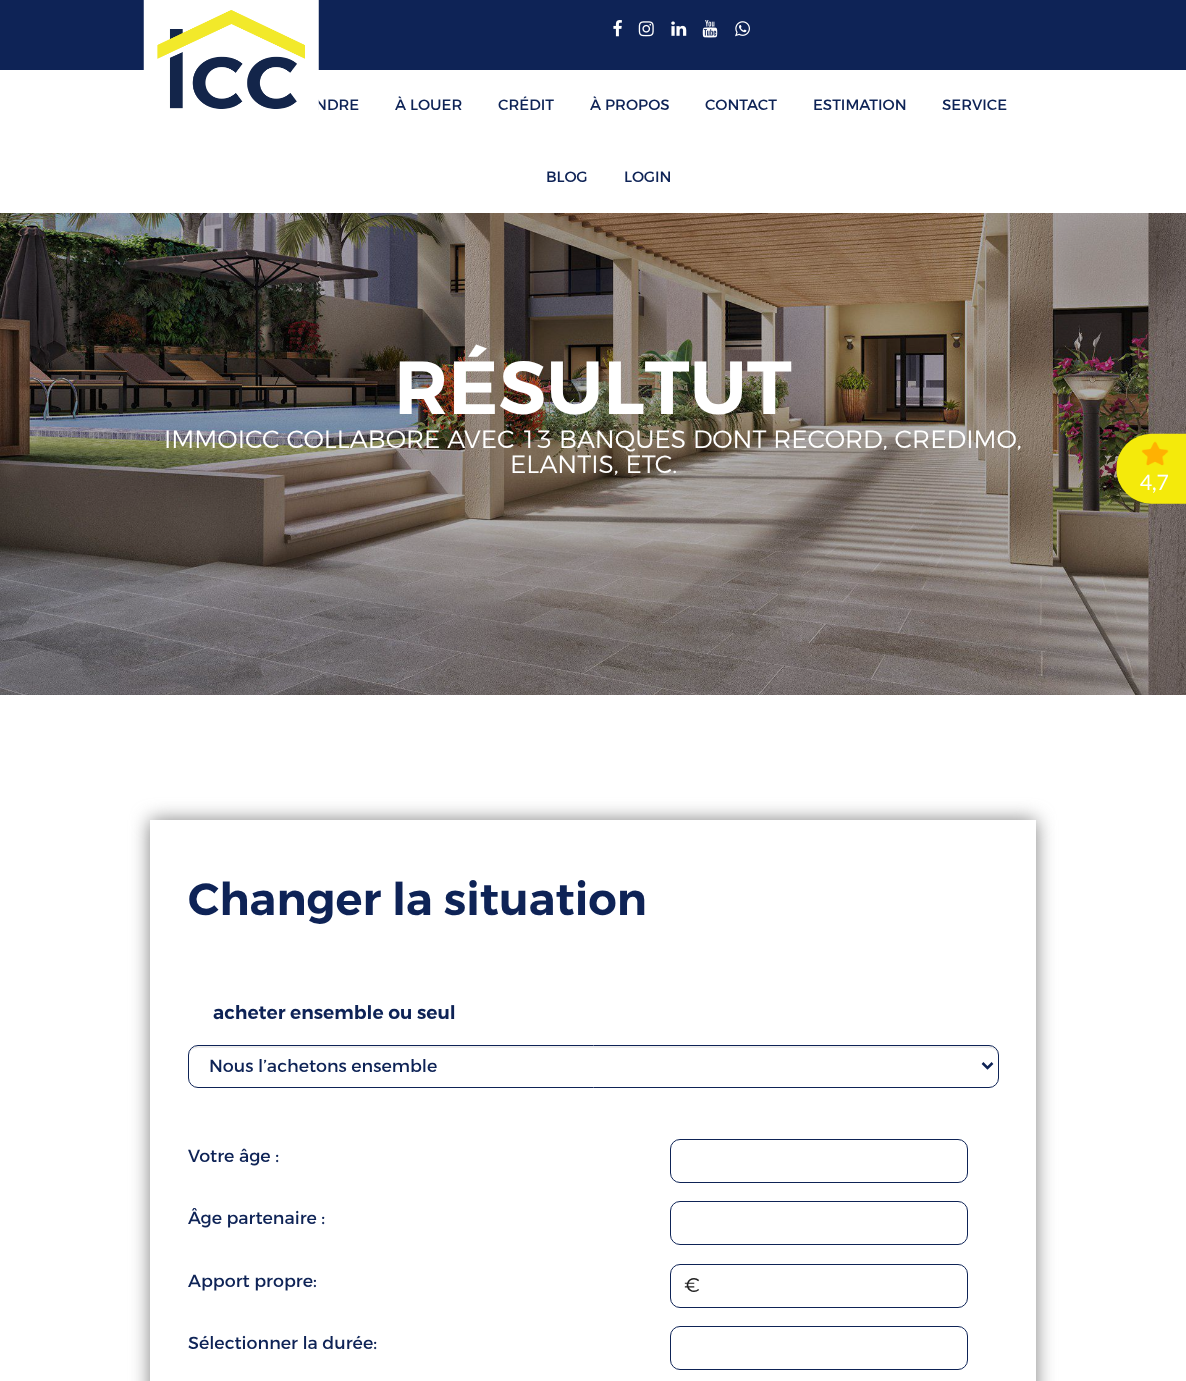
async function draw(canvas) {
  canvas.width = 1186;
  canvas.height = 1381;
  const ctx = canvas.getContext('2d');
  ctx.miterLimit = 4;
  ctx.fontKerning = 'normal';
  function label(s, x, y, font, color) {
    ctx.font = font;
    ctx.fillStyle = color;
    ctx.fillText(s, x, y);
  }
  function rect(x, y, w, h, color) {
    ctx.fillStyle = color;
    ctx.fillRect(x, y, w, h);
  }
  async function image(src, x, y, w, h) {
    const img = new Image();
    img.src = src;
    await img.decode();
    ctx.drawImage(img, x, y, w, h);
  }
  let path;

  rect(0, 0, 1186, 1381, '#fff');
  rect(0, 0, 1186, 70, '#0e2356');
  label('NDRE', 315, 110, '15px Montserrat', '#0e2356');
  await image('assets/img1.png', 143, 0, 176, 111);
  await image('assets/img2.png', 613, 20, 9, 17);
  await image('assets/img3.png', 638, 21, 16, 16);
  await image('assets/img4.png', 671, 21, 16, 15);
  await image('assets/img5.png', 702, 20, 16, 18);
  await image('assets/img6.png', 735, 21, 15, 16);
  label('À LOUER', 395, 110, '15px Montserrat', '#0e2356');
  label('CRÉDIT', 498, 110, '15px Montserrat', '#0e2356');
  label('À PROPOS', 590, 110, '15px Montserrat', '#0e2356');
  label('CONTACT', 705, 110, '15px Montserrat', '#0e2356');
  label('ESTIMATION', 813, 110, '15px Montserrat', '#0e2356');
  label('SERVICE', 942, 110, '15px Montserrat', '#0e2356');
  label('BLOG', 546, 182, '15px Montserrat', '#0e2356');
  label('LOGIN', 624, 182, '15px Montserrat', '#0e2356');
  await image('assets/img7.png', 0, 213, 1186, 482);
  label('RÉSULTUT', 394, 414, '600 75px Montserrat', '#fff');
  label('IMMOICC COLLABORE AVEC 13 BANQUES DONT RECORD, CREDIMO,', 164, 448, '300 25px Montserrat', '#fff');
  label('ELANTIS, ETC.', 510, 473, '300 25px Montserrat', '#fff');
  ctx.save();
  path = new Path2D('M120 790H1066V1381H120ZM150 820H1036V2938H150Z');
  ctx.clip(path, 'evenodd');
  ctx.fillStyle = '#808080';
  ctx.filter = 'blur(9.5px)';
  ctx.beginPath();
  ctx.rect(150, 820, 886, 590);
  ctx.fill();
  ctx.filter = 'none';
  ctx.restore();
  label('Changer la situation', 188, 915, '600 45px Montserrat', '#0e2356');
  label('acheter ensemble ou seul', 213, 1019, '600 18.75px Montserrat', '#0e2356');
  ctx.fillStyle = '#ececec';
  path = new Path2D('M198 1048H989C994 1048 998 1051 998 1056C998 1051 995 1046 989 1046H198C192 1046 189 1051 189 1056C189 1051 193 1048 198 1048Z');
  ctx.fill(path);
  ctx.beginPath();
  ctx.roundRect(188.5, 1045.5, 810, 42, 9.5);
  ctx.strokeStyle = '#0e2356';
  ctx.stroke();
  path = new Path2D('M982.5 1063L987.5 1068L992.5 1063');
  ctx.lineWidth = 2.5;
  ctx.stroke(path);
  label('Nous l’achetons ensemble', 209, 1072, '17.5px Montserrat', '#0e2356');
  label('Votre âge :', 188, 1162, '17.5px Montserrat', '#0e2356');
  ctx.beginPath();
  ctx.roundRect(670.5, 1139.5, 297, 43, 9.5);
  ctx.lineWidth = 1;
  ctx.stroke();
  label('Âge partenaire :', 188, 1224, '17.5px Montserrat', '#0e2356');
  ctx.beginPath();
  ctx.roundRect(670.5, 1201.5, 297, 43, 9.5);
  ctx.stroke();
  label('Apport propre:', 188, 1287, '17.5px Montserrat', '#0e2356');
  ctx.beginPath();
  ctx.roundRect(670.5, 1264.5, 297, 43, 9.5);
  ctx.stroke();
  label('€', 684, 1292, '300 20px Montserrat', '#222');
  label('Sélectionner la durée:', 188, 1349, '17.5px Montserrat', '#0e2356');
  ctx.beginPath();
  ctx.roundRect(670.5, 1326.5, 297, 43, 9.5);
  ctx.stroke();
  await image('assets/img8.png', 1116, 433, 70, 71);
}

draw(document.querySelector('canvas'));
